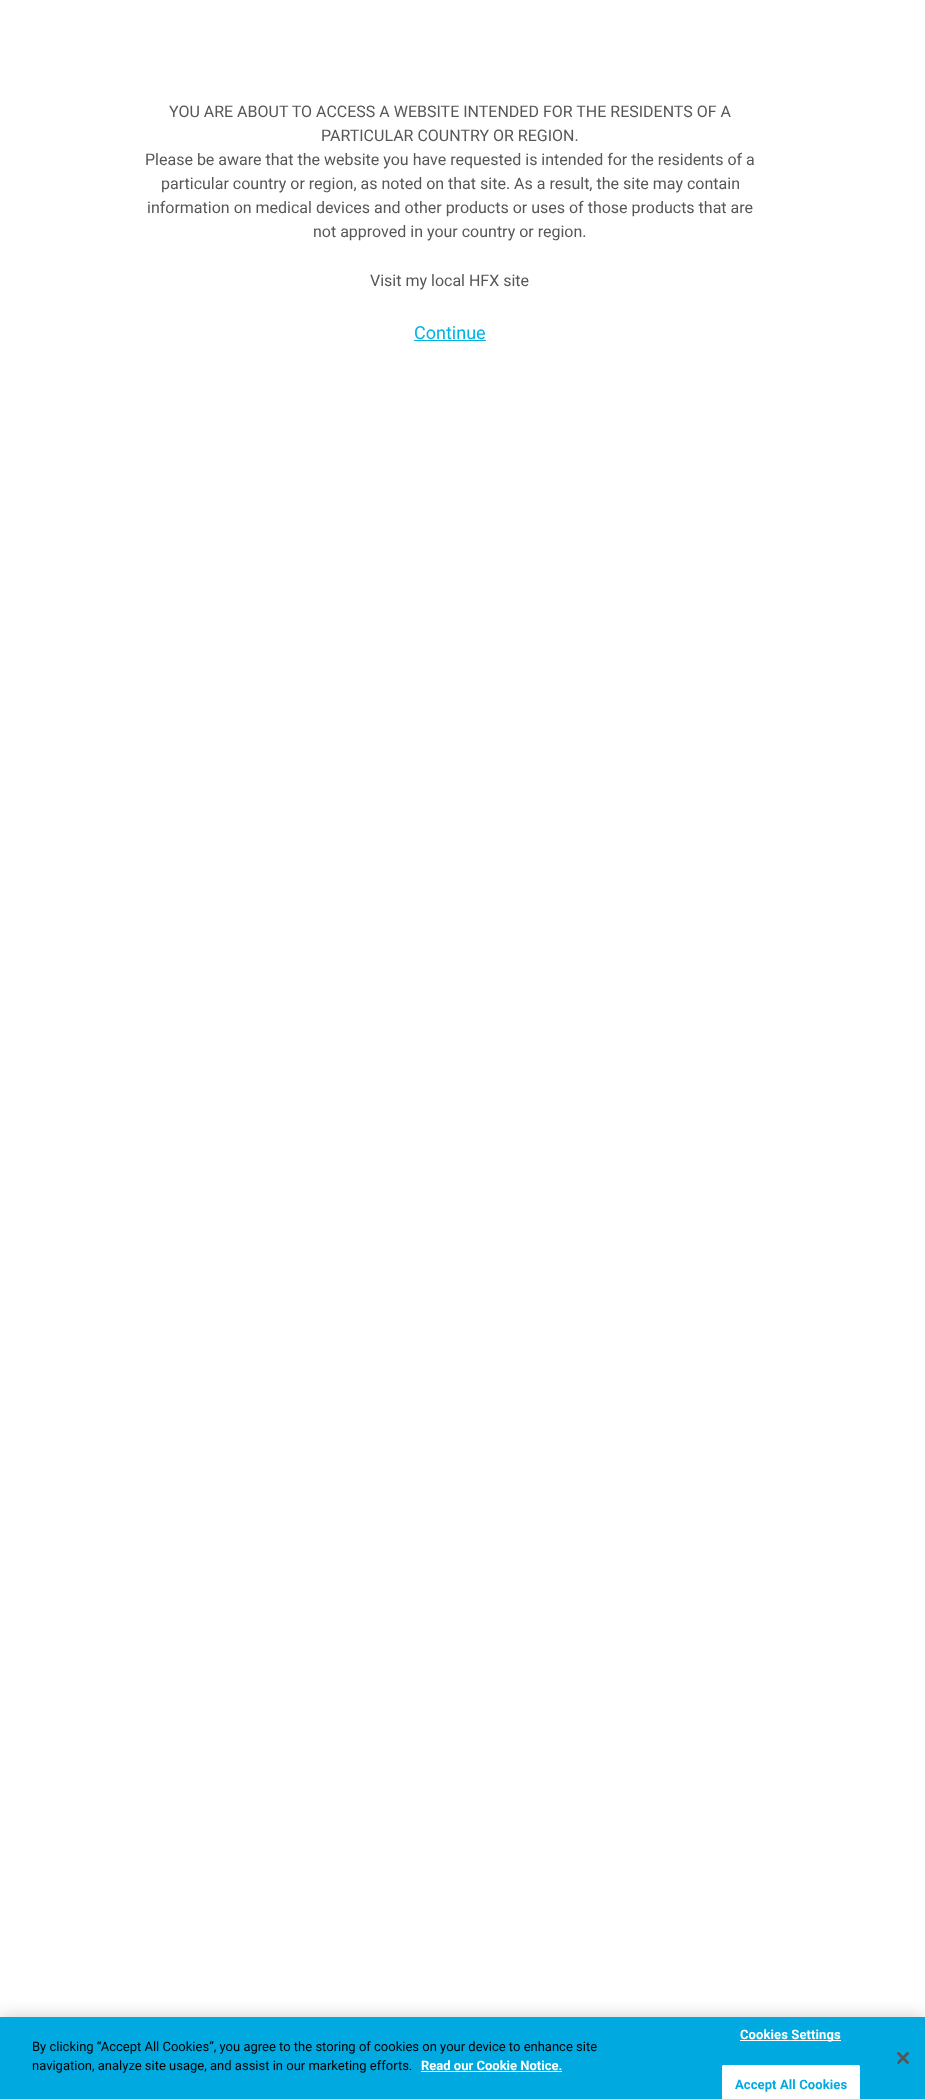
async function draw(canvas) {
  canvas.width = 925;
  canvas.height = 2099;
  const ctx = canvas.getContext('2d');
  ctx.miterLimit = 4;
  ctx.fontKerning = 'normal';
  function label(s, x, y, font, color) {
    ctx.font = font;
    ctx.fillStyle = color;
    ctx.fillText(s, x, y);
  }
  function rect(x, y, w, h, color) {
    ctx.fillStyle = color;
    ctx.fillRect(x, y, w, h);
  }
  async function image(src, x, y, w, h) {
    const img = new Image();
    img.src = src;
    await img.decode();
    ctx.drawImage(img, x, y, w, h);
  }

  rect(0, 0, 925, 2099, '#fff');
  label('YOU ARE ABOUT TO ACCESS A WEBSITE INTENDED FOR THE RESIDENTS OF A', 169, 117, '16px Roboto', '#575757');
  label('PARTICULAR COUNTRY OR REGION.', 321, 141, '16px Roboto', '#575757');
  label('Please be aware that the website you have requested is intended for the residents of a', 145, 165, '16px Roboto', '#575757');
  label('particular country or region, as noted on that site. As a result, the site may contain', 161, 189, '16px Roboto', '#575757');
  label('information on medical devices and other products or uses of those products that are', 147, 213, '16px Roboto', '#575757');
  label('not approved in your country or region.', 313, 237, '16px Roboto', '#575757');
  label('Visit my local HFX site', 370, 286, '16px Roboto', '#575757');
  label('Continue', 414, 339, '18px Roboto', '#00b3e2');
  rect(414, 340, 72, 1, '#00b3e2');
  ctx.fillStyle = '#00000033';
  ctx.filter = 'blur(9px)';
  ctx.beginPath();
  ctx.rect(0, 2017, 925, 82);
  ctx.fill();
  ctx.filter = 'none';
  rect(0, 2017, 925, 82, '#00a9e0');
  label('By clicking “Accept All Cookies”, you agree to the storing of cookies on your device to enhance site', 32, 2051, '13px Roboto', '#000');
  label('navigation, analyze site usage, and assist in our marketing efforts.', 32, 2070, '13px Roboto', '#000');
  label('Read our Cookie Notice.', 421, 2070, 'bold 13px Roboto', '#fff');
  rect(421, 2071, 141, 1, '#fff');
  rect(740, 2040, 101, 1, '#fff');
  ctx.letterSpacing = '0.1px';
  label('Cookies Settings', 740, 2039, 'bold 13px Roboto', '#fff');
  ctx.beginPath();
  ctx.roundRect(722, 2065, 138, 34, [2, 2, 0, 0]);
  ctx.fill();
  ctx.beginPath();
  ctx.roundRect(722.5, 2065.5, 137, 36, 1.5);
  ctx.strokeStyle = '#fff';
  ctx.stroke();
  label('Accept All Cookies', 735, 2089, 'bold 13px Roboto', '#00a9e0');
  await image('assets/img1.png', 897, 2052, 12, 12);
}

draw(document.querySelector('canvas'));
